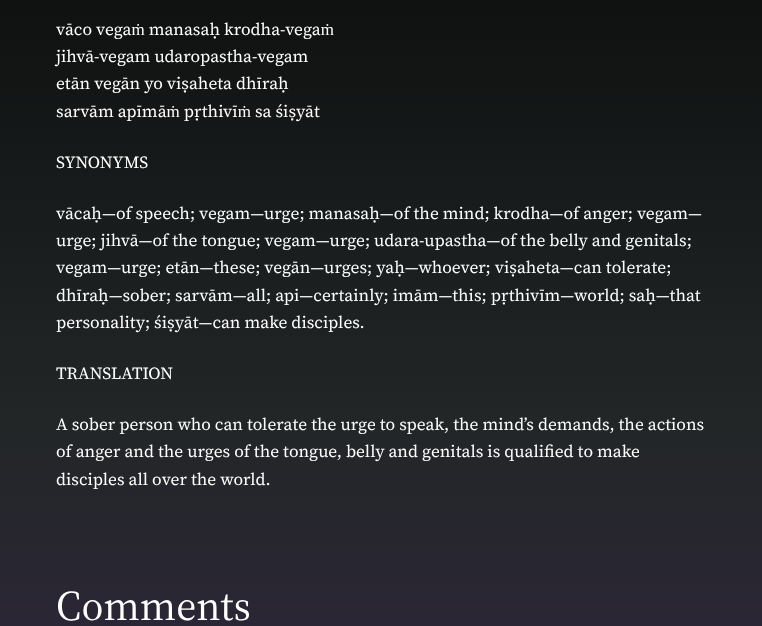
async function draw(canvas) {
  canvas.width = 762;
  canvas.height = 626;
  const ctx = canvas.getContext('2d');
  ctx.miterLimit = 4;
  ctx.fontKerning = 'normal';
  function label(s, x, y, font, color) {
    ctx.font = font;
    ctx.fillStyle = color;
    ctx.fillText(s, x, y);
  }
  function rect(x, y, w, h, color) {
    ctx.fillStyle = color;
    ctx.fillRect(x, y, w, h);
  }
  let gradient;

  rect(0, 0, 762, 626, '#fff');
  gradient = ctx.createLinearGradient(381, -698, 381, 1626);
  gradient.addColorStop(0, '#000');
  gradient.addColorStop(0.15, '#000');
  gradient.addColorStop(0.48, '#222626');
  gradient.addColorStop(1, '#54267f');
  ctx.fillStyle = gradient;
  ctx.fillRect(0, 0, 762, 626);
  label('vāco vegaṁ manasaḥ krodha-vegaṁ', 56, 35, '17px "Source Serif 4"', '#fff');
  label('jihvā-vegam udaropastha-vegam', 56, 62, '17px "Source Serif 4"', '#fff');
  label('etān vegān yo viṣaheta dhīraḥ', 56, 89, '17px "Source Serif 4"', '#fff');
  label('sarvām apīmāṁ pṛthivīṁ sa śiṣyāt', 56, 117, '17px "Source Serif 4"', '#fff');
  label('SYNONYMS', 56, 168, '17px "Source Serif 4"', '#fff');
  label('vācaḥ—of speech; vegam—urge; manasaḥ—of the mind; krodha—of anger; vegam—', 56, 219, '17px "Source Serif 4"', '#fff');
  label('urge; jihvā—of the tongue; vegam—urge; udara-upastha—of the belly and genitals;', 56, 246, '17px "Source Serif 4"', '#fff');
  label('vegam—urge; etān—these; vegān—urges; yaḥ—whoever; viṣaheta—can tolerate;', 56, 273, '17px "Source Serif 4"', '#fff');
  label('dhīraḥ—sober; sarvām—all; api—certainly; imām—this; pṛthivīm—world; saḥ—that', 56, 301, '17px "Source Serif 4"', '#fff');
  label('personality; śiṣyāt—can make disciples.', 56, 328, '17px "Source Serif 4"', '#fff');
  label('TRANSLATION', 56, 379, '17px "Source Serif 4"', '#fff');
  label('A sober person who can tolerate the urge to speak, the mind’s demands, the actions', 56, 430, '17px "Source Serif 4"', '#fff');
  label('of anger and the urges of the tongue, belly and genitals is qualified to make', 56, 457, '17px "Source Serif 4"', '#fff');
  label('disciples all over the world.', 56, 485, '17px "Source Serif 4"', '#fff');
  label('Comments', 56, 620, '42px "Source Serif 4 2"', '#fff');
}

draw(document.querySelector('canvas'));
